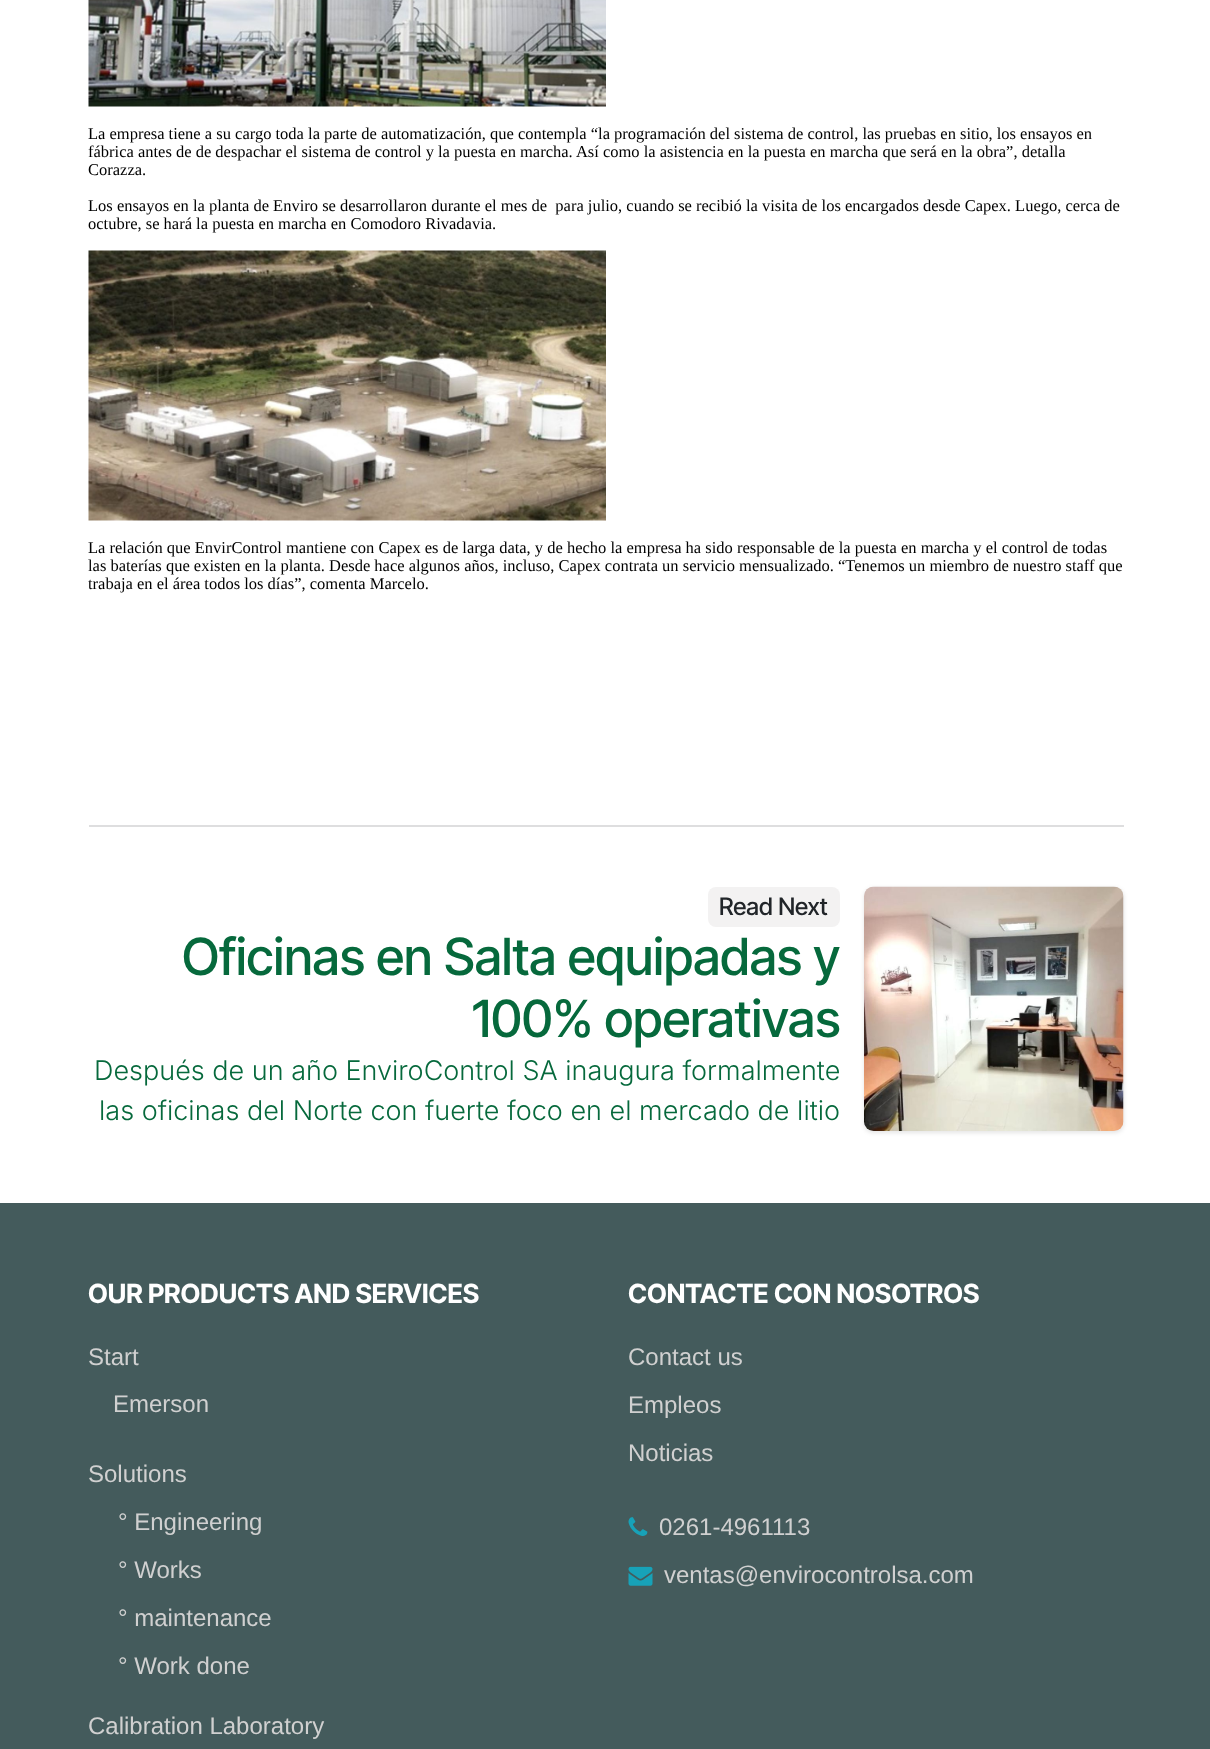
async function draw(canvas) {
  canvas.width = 1210;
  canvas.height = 1749;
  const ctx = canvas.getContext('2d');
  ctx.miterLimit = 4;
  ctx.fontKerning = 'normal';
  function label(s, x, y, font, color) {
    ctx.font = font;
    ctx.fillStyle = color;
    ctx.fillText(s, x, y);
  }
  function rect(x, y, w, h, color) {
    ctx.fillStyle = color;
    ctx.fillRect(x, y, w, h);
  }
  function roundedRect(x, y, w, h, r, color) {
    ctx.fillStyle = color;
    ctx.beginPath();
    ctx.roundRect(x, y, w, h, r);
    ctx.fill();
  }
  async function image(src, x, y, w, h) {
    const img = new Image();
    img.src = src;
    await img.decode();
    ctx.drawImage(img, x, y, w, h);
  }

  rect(0, 0, 1210, 1749, '#fff');
  await image('assets/img1.png', 88, 0, 518, 107);
  label('La empresa tiene a su cargo toda la parte de automatización, que contempla “la programación del sistema de control, las pruebas en sitio, los ensayos en', 88, 139, '16.5px Liberation Serif', '#000');
  label('fábrica antes de de despachar el sistema de control y la puesta en marcha. Así como la asistencia en la puesta en marcha que será en la obra”, detalla', 88, 157, '16.5px Liberation Serif', '#000');
  label('Corazza.', 88, 175, '16.5px Liberation Serif', '#000');
  label('Los ensayos en la planta de Enviro se desarrollaron durante el mes de  para julio, cuando se recibió la visita de los encargados desde Capex. Luego, cerca de', 88, 211, '16.5px Liberation Serif', '#000');
  label('octubre, se hará la puesta en marcha en Comodoro Rivadavia.', 88, 229, '16.5px Liberation Serif', '#000');
  await image('assets/img2.png', 88, 250, 518, 271);
  label('La relación que EnvirControl mantiene con Capex es de larga data, y de hecho la empresa ha sido responsable de la puesta en marcha y el control de todas', 88, 553, '16.5px Liberation Serif', '#000');
  label('las baterías que existen en la planta. Desde hace algunos años, incluso, Capex contrata un servicio mensualizado. “Tenemos un miembro de nuestro staff que', 88, 571, '16.5px Liberation Serif', '#000');
  label('trabaja en el área todos los días”, comenta Marcelo.', 88, 589, '16.5px Liberation Serif', '#000');
  rect(89, 825, 1035, 2, '#dededf');
  roundedRect(708, 887, 132, 40, 8, '#f3f2f2');
  label('Read Next', 719, 915, '500 24px Inter Tight', '#212529');
  label('Oficinas en Salta equipadas y', 182, 975, '500 51.2px Inter Tight', '#06693c');
  label('100% operativas', 472, 1037, '500 51.2px Inter Tight', '#06693c');
  label('Después de un año EnviroControl SA inaugura formalmente', 94, 1080, '300 27px Inter', '#06693c');
  label('las oficinas del Norte con fuerte foco en el mercado de litio', 99, 1120, '300 27px Inter', '#06693c');
  ctx.fillStyle = '#0000001a';
  ctx.filter = 'blur(2px)';
  ctx.beginPath();
  ctx.roundRect(864, 888, 260, 245, 9);
  ctx.fill();
  ctx.filter = 'none';
  await image('assets/img3.png', 864, 886, 260, 245);
  rect(0, 1203, 1210, 546, '#445b5c');
  label('OUR PRODUCTS AND SERVICES', 88, 1303, 'bold 26.4px Inter Tight', '#fff');
  label('Start', 88, 1365, '24px Liberation Sans', '#d0d0d0');
  label('Emerson', 113, 1412, '24px Liberation Sans', '#d0d0d0');
  label('Solutions', 88, 1482, '24px Liberation Sans', '#d0d0d0');
  label('° Engineering', 118, 1530, '24px Liberation Sans', '#d0d0d0');
  label('° Works', 118, 1578, '24px Liberation Sans', '#d0d0d0');
  label('° maintenance', 118, 1626, '24px Liberation Sans', '#d0d0d0');
  label('° Work done', 118, 1674, '24px Liberation Sans', '#d0d0d0');
  label('Calibration Laboratory', 88, 1734, '24px Liberation Sans', '#d0d0d0');
  label('CONTACTE CON NOSOTROS', 628, 1303, 'bold 26.4px Inter Tight', '#fff');
  label('Contact us', 628, 1365, '24px Liberation Sans', '#d0d0d0');
  label('Empleos', 628, 1413, '24px Liberation Sans', '#d0d0d0');
  label('Noticias', 628, 1461, '24px Liberation Sans', '#d0d0d0');
  await image('assets/img4.png', 628, 1517, 20, 19);
  label('0261-4961113', 659, 1535, '24px Liberation Sans', '#d0d0d0');
  await image('assets/img5.png', 628, 1566, 25, 20);
  label('ventas@envirocontrolsa.com', 664, 1583, '24px Liberation Sans', '#d0d0d0');
}

draw(document.querySelector('canvas'));
